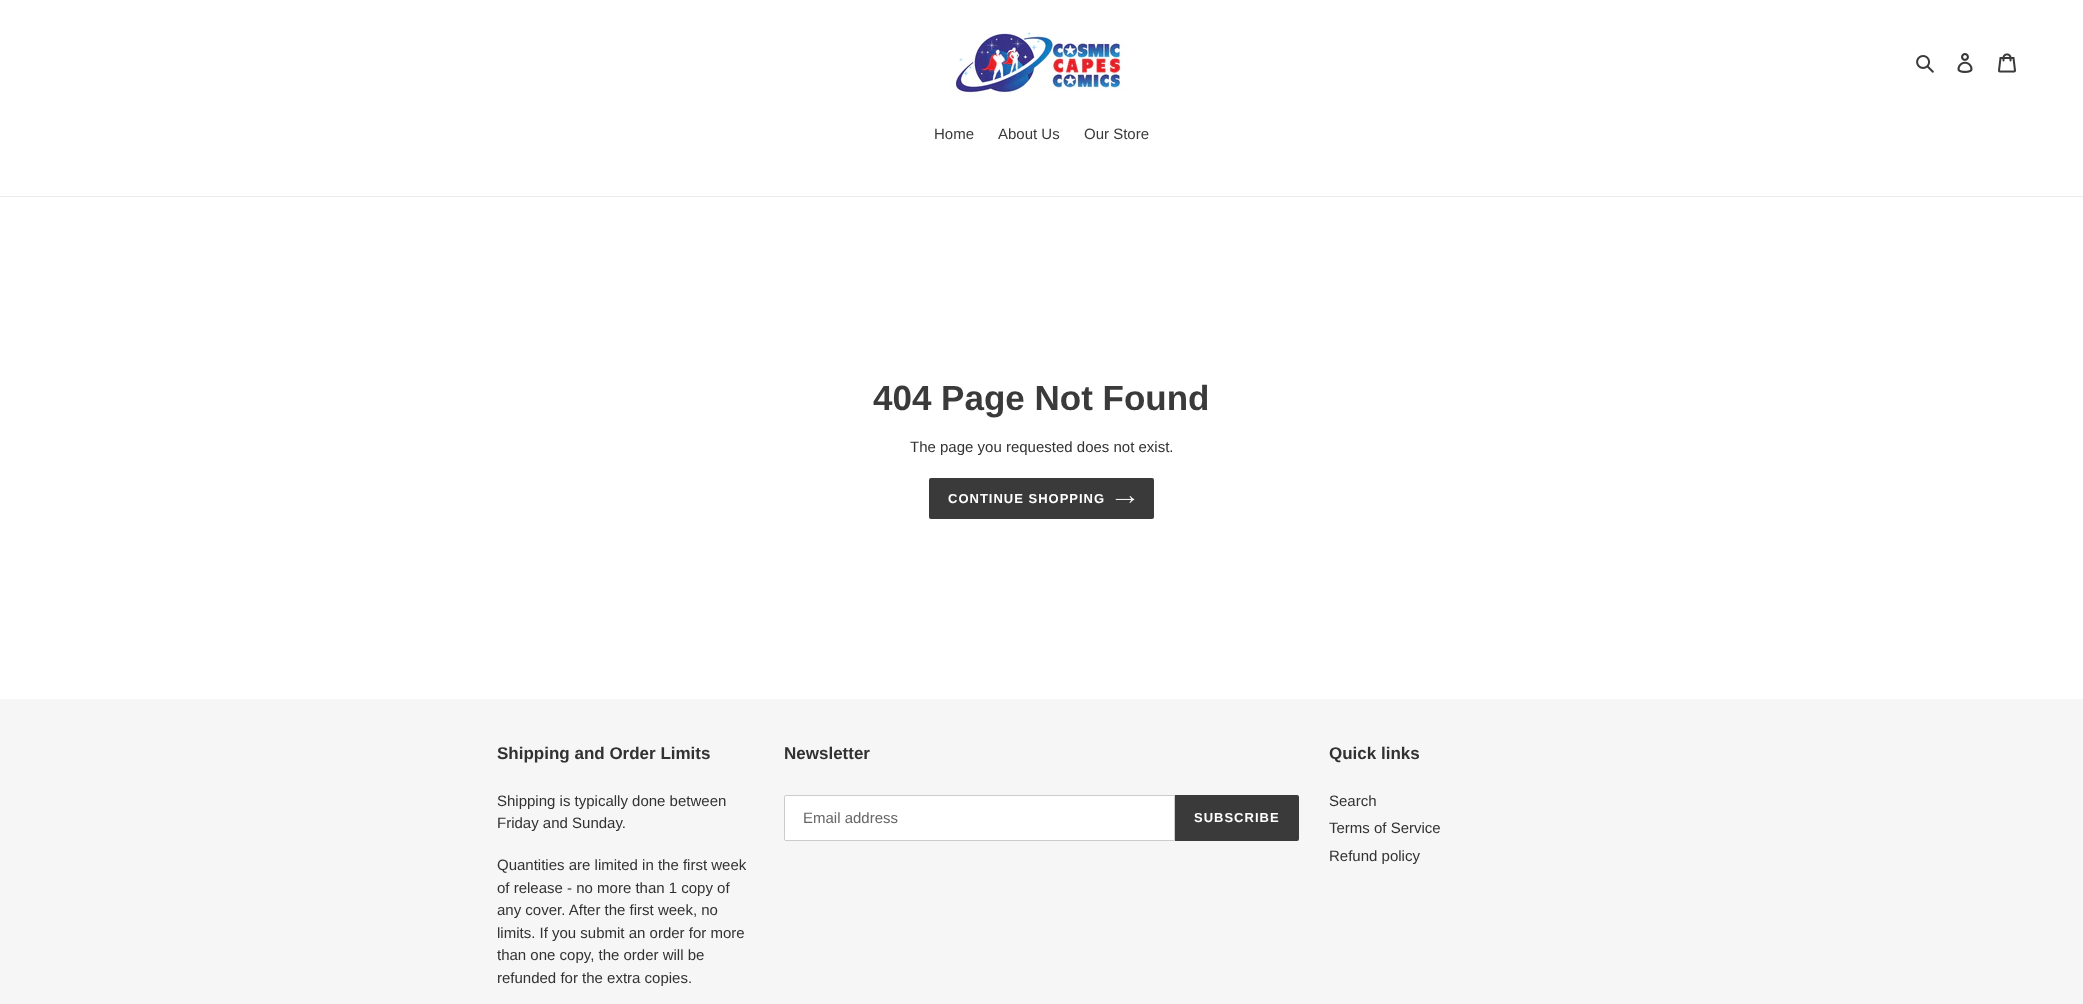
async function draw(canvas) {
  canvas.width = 2083;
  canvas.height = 1004;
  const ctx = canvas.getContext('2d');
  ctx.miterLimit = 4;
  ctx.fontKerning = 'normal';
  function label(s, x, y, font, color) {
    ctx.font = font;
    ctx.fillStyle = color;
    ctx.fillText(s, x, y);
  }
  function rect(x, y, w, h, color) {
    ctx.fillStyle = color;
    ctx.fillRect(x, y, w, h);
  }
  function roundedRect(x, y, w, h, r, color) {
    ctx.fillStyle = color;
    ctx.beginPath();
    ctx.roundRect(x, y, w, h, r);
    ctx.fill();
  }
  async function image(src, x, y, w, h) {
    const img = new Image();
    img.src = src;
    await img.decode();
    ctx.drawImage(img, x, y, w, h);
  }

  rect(0, 0, 2083, 1004, '#fff');
  await image('assets/img1.png', 951, 31, 176, 67);
  await image('assets/img2.png', 1916, 55, 18, 18);
  await image('assets/img3.png', 1957, 53, 16, 20);
  await image('assets/img4.png', 1998, 53, 18, 20);
  rect(0, 196, 2083, 1, '#ebebeb');
  label('Home', 934, 139, '15px Liberation Sans', '#3a3a3a');
  label('About Us', 998, 139, '15px Liberation Sans', '#3a3a3a');
  label('Our Store', 1084, 139, '15px Liberation Sans', '#3a3a3a');
  label('404 Page Not Found', 873, 410, 'bold 35px Liberation Sans', '#3a3a3a');
  label('The page you requested does not exist.', 910, 452, '15px Liberation Sans', '#333232');
  roundedRect(929, 478, 225, 41, 2, '#3a3a3a');
  ctx.letterSpacing = '1px';
  label('CONTINUE SHOPPING', 948, 503, 'bold 13px Liberation Sans', '#fff');
  await image('assets/img5.png', 1115, 495, 20, 8);
  rect(0, 699, 2083, 305, '#f6f6f6');
  ctx.letterSpacing = '0px';
  label('Shipping and Order Limits', 497, 759, 'bold 17px Liberation Sans', '#333232');
  label('Shipping is typically done between', 497, 806, '15px Liberation Sans', '#333232');
  label('Friday and Sunday.', 497, 828, '15px Liberation Sans', '#333232');
  label('Quantities are limited in the first week', 497, 870, '15px Liberation Sans', '#333232');
  label('of release - no more than 1 copy of', 497, 893, '15px Liberation Sans', '#333232');
  label('any cover. After the first week, no', 497, 915, '15px Liberation Sans', '#333232');
  label('limits. If you submit an order for more', 497, 938, '15px Liberation Sans', '#333232');
  label('than one copy, the order will be', 497, 960, '15px Liberation Sans', '#333232');
  label('refunded for the extra copies.', 497, 983, '15px Liberation Sans', '#333232');
  label('Newsletter', 784, 759, 'bold 17px Liberation Sans', '#333232');
  ctx.fillStyle = '#fff';
  ctx.beginPath();
  ctx.roundRect(784.5, 795.5, 390, 45, [1.5, 0, 0, 1.5]);
  ctx.fill();
  ctx.strokeStyle = '#ccc';
  ctx.stroke();
  label('Email address', 803, 823, '15px Liberation Sans', '#666');
  ctx.fillStyle = '#3a3a3a';
  ctx.beginPath();
  ctx.roundRect(1175, 795, 124, 46, [0, 2, 2, 0]);
  ctx.fill();
  ctx.letterSpacing = '1px';
  label('SUBSCRIBE', 1194, 822, 'bold 13px Liberation Sans', '#fff');
  ctx.letterSpacing = '0px';
  label('Quick links', 1329, 759, 'bold 17px Liberation Sans', '#333232');
  label('Search', 1329, 806, '15px Liberation Sans', '#333232');
  label('Terms of Service', 1329, 833, '15px Liberation Sans', '#333232');
  label('Refund policy', 1329, 861, '15px Liberation Sans', '#333232');
}

draw(document.querySelector('canvas'));
